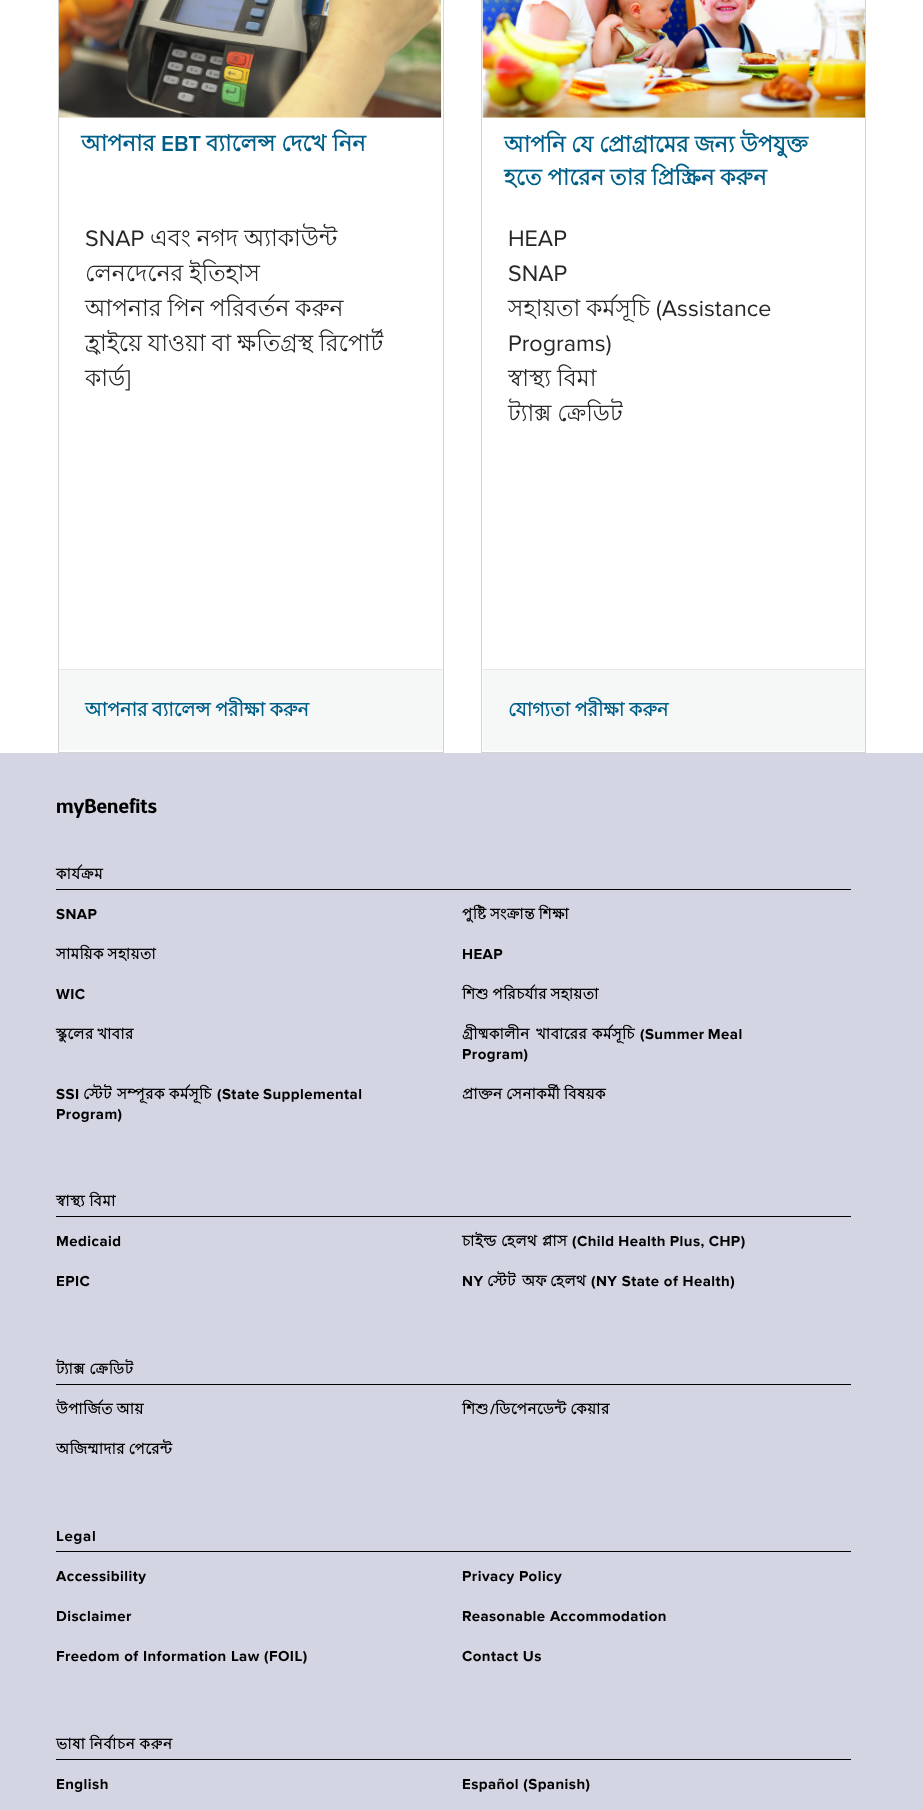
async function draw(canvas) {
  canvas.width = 923;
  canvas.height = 1810;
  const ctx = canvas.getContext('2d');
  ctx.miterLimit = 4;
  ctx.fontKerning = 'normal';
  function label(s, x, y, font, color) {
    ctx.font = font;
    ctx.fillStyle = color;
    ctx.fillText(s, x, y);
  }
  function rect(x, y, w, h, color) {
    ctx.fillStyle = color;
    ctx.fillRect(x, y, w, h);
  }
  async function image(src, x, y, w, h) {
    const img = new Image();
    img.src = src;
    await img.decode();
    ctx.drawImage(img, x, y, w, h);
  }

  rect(0, 0, 923, 1810, '#fff');
  ctx.strokeStyle = '#d3d3d3';
  ctx.strokeRect(58.5, -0.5, 385, 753);
  await image('assets/img1.png', 58, 0, 384, 118);
  label('আপনার', 81, 151, 'bold 22.5px Lohit Bengali', '#005f88');
  label('EBT', 161, 151, '600 22.5px Proxima Nova', '#005f88');
  label('ব্যালেন্স দেখে নিন', 206, 151, 'bold 22.5px Lohit Bengali', '#005f88');
  label('SNAP', 85, 246, '23.3px Proxima Nova', '#272727');
  ctx.wordSpacing = '-0.5px';
  label('এবং নগদ অ্যাকাউন্ট', 150, 246, '23.3px Lohit Bengali', '#272727');
  label('লেনদেনের ইতিহাস', 85, 281, '23.3px Lohit Bengali', '#272727');
  label('আপনার পিন পরিবর্তন করুন', 85, 316, '23.3px Lohit Bengali', '#272727');
  label('হ্রাইয়ে যাওয়া বা ক্ষতিগ্রস্থ রিপোর্ট', 85, 351, '23.3px Lohit Bengali', '#272727');
  ctx.wordSpacing = '0px';
  label('কার্ড', 85, 386, '23.3px Lohit Bengali', '#272727');
  label(']', 125, 386, '23.3px Proxima Nova', '#272727');
  rect(59, 670, 384, 80, '#f6f8f8');
  rect(59, 669, 384, 1, '#e5e6e6');
  ctx.wordSpacing = '-0.5px';
  label('আপনার ব্যালেন্স পরীক্ষা করুন', 85, 716, 'bold 19px Lohit Bengali', '#005f88');
  ctx.strokeRect(481.5, -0.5, 384, 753);
  await image('assets/img2.png', 482, 0, 383, 118);
  label('আপনি যে প্রোগ্রামের জন্য উপযুক্ত', 504, 152, 'bold 22.5px Lohit Bengali', '#005f88');
  label('হতে পারেন তার প্রিস্ক্রিন করুন', 504, 185, 'bold 22.5px Lohit Bengali', '#005f88');
  ctx.wordSpacing = '0px';
  label('HEAP', 508, 246, '23.3px Proxima Nova', '#272727');
  label('SNAP', 508, 281, '23.3px Proxima Nova', '#272727');
  ctx.wordSpacing = '-0.5px';
  label('সহায়তা কর্মসূচি', 508, 316, '23.3px Lohit Bengali', '#272727');
  ctx.wordSpacing = '0px';
  label('(Assistance', 656, 316, '23.3px Proxima Nova', '#272727');
  label('Programs)', 508, 351, '23.3px Proxima Nova', '#272727');
  ctx.wordSpacing = '-0.5px';
  label('স্বাস্থ্য বিমা', 508, 386, '23.3px Lohit Bengali', '#272727');
  label('ট্যাক্স ক্রেডিট', 508, 421, '23.3px Lohit Bengali', '#272727');
  rect(483, 670, 382, 81, '#f6f8f8');
  rect(483, 669, 382, 1, '#e5e6e6');
  label('যোগ্যতা পরীক্ষা করুন', 508, 716, 'bold 19px Lohit Bengali', '#005f88');
  rect(0, 753, 923, 1057, '#d4d5e3');
  ctx.wordSpacing = '0px';
  label('myBenefits', 56, 813, '600 20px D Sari', '#000');
  ctx.letterSpacing = '0.75px';
  label('কার্যক্রম', 56, 879, 'bold 15px Lohit Bengali', '#000');
  rect(56, 889, 795, 1, '#000');
  ctx.letterSpacing = '0.45px';
  label('SNAP', 56, 919, 'bold 15px Proxima Nova', '#000');
  ctx.wordSpacing = '-1px';
  label('পুষ্টি সংক্রান্ত শিক্ষা', 462, 919, 'bold 15px Lohit Bengali', '#000');
  label('সাময়িক সহায়তা', 56, 959, 'bold 15px Lohit Bengali', '#000');
  ctx.wordSpacing = '0px';
  label('HEAP', 462, 959, 'bold 15px Proxima Nova', '#000');
  label('WIC', 56, 999, 'bold 15px Proxima Nova', '#000');
  ctx.wordSpacing = '-1px';
  label('শিশু পরিচর্যার সহায়তা', 462, 999, 'bold 15px Lohit Bengali', '#000');
  label('স্কুলের খাবার', 56, 1039, 'bold 15px Lohit Bengali', '#000');
  ctx.wordSpacing = '0px';
  label('গ্রীষ্মকালীন', 462, 1039, 'bold 15px Lohit Bengali', '#000');
  label('খাবারের', 536, 1039, 'bold 15px Lohit Bengali', '#000');
  label('কর্মসূচি', 592, 1039, 'bold 15px Lohit Bengali', '#000');
  ctx.wordSpacing = '-1px';
  label('(Summer Meal', 640, 1039, 'bold 15px Proxima Nova', '#000');
  ctx.wordSpacing = '0px';
  label('Program)', 462, 1059, 'bold 15px Proxima Nova', '#000');
  label('SSI', 56, 1099, 'bold 15px Proxima Nova', '#000');
  label('স্টেট', 83, 1099, 'bold 15px Lohit Bengali', '#000');
  label('সম্পূরক', 117, 1099, 'bold 15px Lohit Bengali', '#000');
  label('কর্মসূচি', 169, 1099, 'bold 15px Lohit Bengali', '#000');
  ctx.wordSpacing = '-1px';
  label('(State Supplemental', 217, 1099, 'bold 15px Proxima Nova', '#000');
  ctx.wordSpacing = '0px';
  label('Program)', 56, 1119, 'bold 15px Proxima Nova', '#000');
  ctx.wordSpacing = '-1px';
  label('প্রাক্তন সেনাকর্মী বিষয়ক', 462, 1099, 'bold 15px Lohit Bengali', '#000');
  ctx.letterSpacing = '0.75px';
  label('স্বাস্থ্য বিমা', 56, 1206, 'bold 15px Lohit Bengali', '#000');
  rect(56, 1216, 795, 1, '#000');
  ctx.letterSpacing = '0.45px';
  ctx.wordSpacing = '0px';
  label('Medicaid', 56, 1246, 'bold 15px Proxima Nova', '#000');
  label('চাইল্ড', 462, 1246, 'bold 15px Lohit Bengali', '#000');
  label('হেলথ', 501, 1246, 'bold 15px Lohit Bengali', '#000');
  label('প্লাস', 542, 1246, 'bold 15px Lohit Bengali', '#000');
  ctx.wordSpacing = '-0.5px';
  label('(Child Health Plus, CHP)', 572, 1246, 'bold 15px Proxima Nova', '#000');
  ctx.wordSpacing = '0px';
  label('EPIC', 56, 1286, 'bold 15px Proxima Nova', '#000');
  label('NY', 462, 1286, 'bold 15px Proxima Nova', '#000');
  label('স্টেট', 487, 1286, 'bold 15px Lohit Bengali', '#000');
  label('অফ', 522, 1286, 'bold 15px Lohit Bengali', '#000');
  label('হেলথ', 550, 1286, 'bold 15px Lohit Bengali', '#000');
  label('(NY State of Health)', 591, 1286, 'bold 15px Proxima Nova', '#000');
  ctx.letterSpacing = '0.75px';
  ctx.wordSpacing = '-1px';
  label('ট্যাক্স ক্রেডিট', 56, 1374, 'bold 15px Lohit Bengali', '#000');
  rect(56, 1384, 795, 1, '#000');
  ctx.letterSpacing = '0.45px';
  label('উপার্জিত আয়', 56, 1414, 'bold 15px Lohit Bengali', '#000');
  ctx.wordSpacing = '0px';
  label('শিশু', 462, 1414, 'bold 15px Lohit Bengali', '#000');
  label('/', 490, 1414, 'bold 15px Proxima Nova', '#000');
  ctx.wordSpacing = '-1px';
  label('ডিপেনডেন্ট কেয়ার', 495, 1414, 'bold 15px Lohit Bengali', '#000');
  label('অজিম্মাদার পেরেন্ট', 56, 1454, 'bold 15px Lohit Bengali', '#000');
  ctx.letterSpacing = '0.75px';
  ctx.wordSpacing = '0px';
  label('Legal', 56, 1541, 'bold 15px Proxima Nova', '#000');
  rect(56, 1551, 795, 1, '#000');
  ctx.letterSpacing = '0.45px';
  label('Accessibility', 56, 1581, 'bold 15px Proxima Nova', '#000');
  label('Privacy Policy', 462, 1581, 'bold 15px Proxima Nova', '#000');
  label('Disclaimer', 56, 1621, 'bold 15px Proxima Nova', '#000');
  label('Reasonable Accommodation', 462, 1621, 'bold 15px Proxima Nova', '#000');
  label('Freedom of Information Law (FOIL)', 56, 1661, 'bold 15px Proxima Nova', '#000');
  label('Contact Us', 462, 1661, 'bold 15px Proxima Nova', '#000');
  ctx.letterSpacing = '0.75px';
  ctx.wordSpacing = '-1px';
  label('ভাষা নির্বাচন করুন', 56, 1749, 'bold 15px Lohit Bengali', '#000');
  rect(56, 1759, 795, 1, '#000');
  ctx.letterSpacing = '0.45px';
  ctx.wordSpacing = '0px';
  label('English', 56, 1789, 'bold 15px Proxima Nova', '#000');
  label('Español (Spanish)', 462, 1789, 'bold 15px Proxima Nova', '#000');
}

draw(document.querySelector('canvas'));
